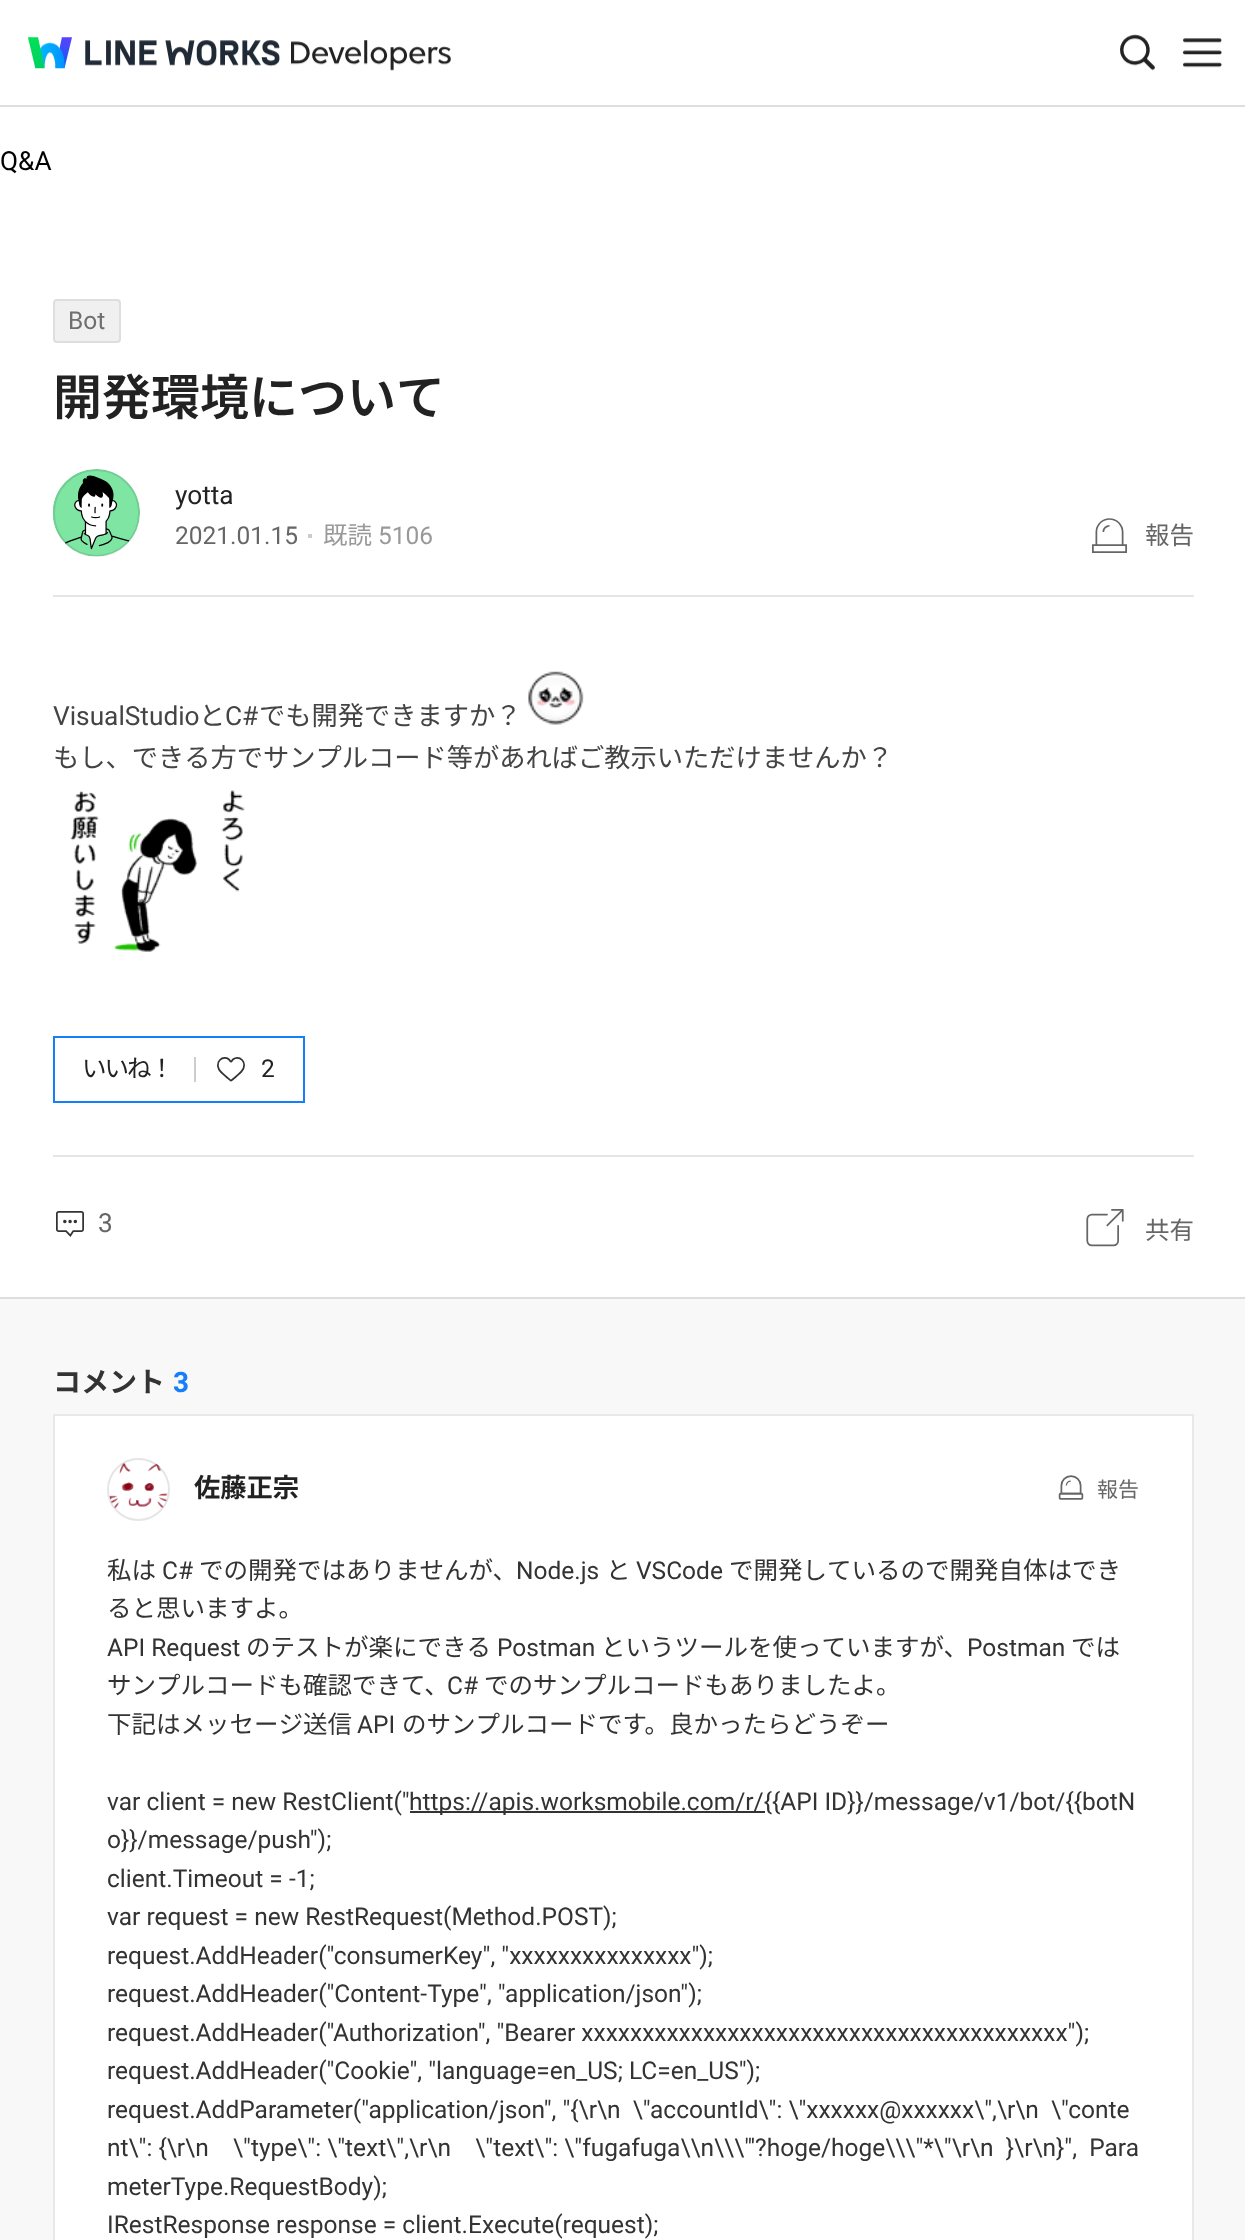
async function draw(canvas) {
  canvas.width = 1245;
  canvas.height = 2240;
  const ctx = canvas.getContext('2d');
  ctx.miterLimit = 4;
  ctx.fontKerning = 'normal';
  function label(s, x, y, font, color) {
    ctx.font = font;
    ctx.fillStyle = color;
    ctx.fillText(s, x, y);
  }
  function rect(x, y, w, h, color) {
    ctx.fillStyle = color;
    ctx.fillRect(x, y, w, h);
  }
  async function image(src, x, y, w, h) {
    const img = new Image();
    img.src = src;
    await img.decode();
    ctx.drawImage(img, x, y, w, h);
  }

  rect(0, 0, 1245, 2240, '#fff');
  rect(0, 105, 1245, 2, '#dedede');
  await image('assets/img1.png', 28, 37, 252, 32);
  await image('assets/img2.png', 291, 40, 160, 31);
  await image('assets/img3.png', 1120, 34, 35, 37);
  await image('assets/img4.png', 1182, 38, 40, 30);
  label('Q&A', 0, 170, '26.25px Roboto', '#000');
  rect(0, 1299, 1245, 941, '#f8f8f9');
  rect(0, 1297, 1245, 2, '#ddd');
  ctx.fillStyle = '#f0f0f0';
  ctx.beginPath();
  ctx.roundRect(54, 300, 66, 42, 3);
  ctx.fill();
  ctx.strokeStyle = '#dedede';
  ctx.lineWidth = 2;
  ctx.stroke();
  label('Bot', 68, 329, '24.5px Roboto', '#6f6f6f');
  label('開発環境について', 53, 415, '600 49px Noto Sans JP', '#222');
  await image('assets/img5.png', 53, 469, 87, 88);
  ctx.beginPath();
  ctx.roundRect(54, 470, 85, 86, 42.5);
  ctx.strokeStyle = '#0000001a';
  ctx.stroke();
  label('yotta', 175, 504, '26.25px Roboto', '#222');
  label('2021.01.15', 175, 544, '24.5px Roboto', '#666');
  rect(308, 534, 4, 4, '#ccc');
  label('既読', 323, 544, '24.5px Noto Sans CJK JP', '#999');
  label('5106', 378, 544, '24.5px Roboto', '#999');
  await image('assets/img6.png', 1092, 518, 35, 35);
  label('報告', 1145, 544, '24.5px Noto Sans CJK JP', '#666');
  rect(53, 595, 1141, 2, '#e5e5e5');
  label('VisualStudio', 53, 725, '26.25px Roboto', '#444');
  label('と', 199, 725, '26.25px Noto Sans CJK JP', '#444');
  label('C#', 225, 725, '26.25px Roboto', '#444');
  label('でも開発できますか？', 259, 725, '26.25px Noto Sans CJK JP', '#444');
  await image('assets/img7.png', 528, 671, 56, 54);
  label('もし、できる方でサンプルコード等があればご教示いただけませんか？', 53, 767, '26.25px Noto Sans CJK JP', '#444');
  await image('assets/img8.png', 70, 790, 175, 162);
  ctx.strokeStyle = '#157efb';
  ctx.strokeRect(54, 1037, 250, 65);
  ctx.letterSpacing = '-2px';
  label('いいね！', 82, 1077, '24.5px Noto Sans CJK JP', '#222');
  rect(194, 1057, 2, 25, '#cdcdcd');
  await image('assets/img9.png', 217, 1057, 28, 25);
  ctx.letterSpacing = '0px';
  label('2', 261, 1077, '24.5px Roboto', '#222');
  rect(53, 1155, 1141, 2, '#e5e5e5');
  await image('assets/img10.png', 56, 1211, 28, 26);
  label('3', 98, 1232, '26.25px Roboto', '#666');
  await image('assets/img11.png', 1086, 1209, 38, 38);
  label('共有', 1145, 1239, '24.5px Noto Sans CJK JP', '#666');
  label('コメント', 53, 1392, 'bold 28px Noto Sans JP', '#333');
  label('3', 173, 1392, 'bold 28px Roboto', '#157efb');
  ctx.fillStyle = '#fff';
  ctx.beginPath();
  ctx.rect(54, 1415, 1139, 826);
  ctx.fill();
  ctx.strokeStyle = '#e8e8e8';
  ctx.stroke();
  await image('assets/img12.png', 109, 1462, 59, 47);
  ctx.beginPath();
  ctx.arc(138.5, 1489.5, 30.5, 0, 2 * Math.PI);
  ctx.strokeStyle = '#0000001a';
  ctx.stroke();
  label('佐藤正宗', 194, 1497, 'bold 26.25px Noto Sans JP', '#222');
  await image('assets/img13.png', 1058, 1475, 26, 25);
  label('報告', 1097, 1497, '21px Noto Sans CJK JP', '#666');
  label('私は', 107, 1579, '24.5px Noto Sans CJK JP', '#333');
  label('C#', 162, 1579, '24.5px Roboto', '#333');
  label('での開発ではありませんが、', 199, 1579, '24.5px Noto Sans CJK JP', '#333');
  label('Node.js', 516, 1579, '24.5px Roboto', '#333');
  label('と', 606, 1579, '24.5px Noto Sans CJK JP', '#333');
  label('VSCode', 636, 1579, '24.5px Roboto', '#333');
  label('で開発しているので開発自体はでき', 729, 1579, '24.5px Noto Sans CJK JP', '#333');
  label('ると思いますよ。', 107, 1617, '24.5px Noto Sans CJK JP', '#333');
  label('API Request', 107, 1656, '24.5px Roboto', '#333');
  label('のテストが楽にできる', 246, 1656, '24.5px Noto Sans CJK JP', '#333');
  label('Postman', 497, 1656, '24.5px Roboto', '#333');
  label('というツールを使っていますが、', 601, 1656, '24.5px Noto Sans CJK JP', '#333');
  label('Postman', 967, 1656, '24.5px Roboto', '#333');
  label('では', 1071, 1656, '24.5px Noto Sans CJK JP', '#333');
  label('サンプルコードも確認できて、', 107, 1694, '24.5px Noto Sans CJK JP', '#333');
  label('C#', 447, 1694, '24.5px Roboto', '#333');
  label('でのサンプルコードもありましたよ。', 484, 1694, '24.5px Noto Sans CJK JP', '#333');
  label('下記はメッセージ送信', 107, 1733, '24.5px Noto Sans CJK JP', '#333');
  label('API', 357, 1733, '24.5px Roboto', '#333');
  label('のサンプルコードです。良かったらどうぞー', 402, 1733, '24.5px Noto Sans CJK JP', '#333');
  label('var client = new RestClient("', 107, 1810, '24.5px Roboto', '#333');
  rect(410, 1811, 355, 2, '#333');
  label('https://apis.worksmobile.com/r/{{API ID}}/message/v1/bot/{{botN', 409, 1810, '24.5px Roboto', '#333');
  label('o}}/message/push");', 107, 1848, '24.5px Roboto', '#333');
  label('client.Timeout = -1;', 107, 1887, '24.5px Roboto', '#333');
  label('var request = new RestRequest(Method.POST);', 107, 1925, '24.5px Roboto', '#333');
  label('request.AddHeader("consumerKey", "xxxxxxxxxxxxxxx");', 107, 1964, '24.5px Roboto', '#333');
  label('request.AddHeader("Content-Type", "application/json");', 107, 2002, '24.5px Roboto', '#333');
  label('request.AddHeader("Authorization", "Bearer xxxxxxxxxxxxxxxxxxxxxxxxxxxxxxxxxxxxxxxx");', 107, 2041, '24.5px Roboto', '#333');
  label('request.AddHeader("Cookie", "language=en_US; LC=en_US");', 107, 2079, '24.5px Roboto', '#333');
  label('request.AddParameter("application/json", "{\\r\\n  \\"accountId\\": \\"xxxxxx@xxxxxx\\",\\r\\n  \\"conte', 107, 2118, '24.5px Roboto', '#333');
  label('nt\\": {\\r\\n    \\"type\\": \\"text\\",\\r\\n    \\"text\\": \\"fugafuga\\\\n\\\\\\"\'?hoge/hoge\\\\\\"*\\"\\r\\n  }\\r\\n}",  Para', 107, 2156, '24.5px Roboto', '#333');
  label('meterType.RequestBody);', 107, 2195, '24.5px Roboto', '#333');
  label('IRestResponse response = client.Execute(request);', 107, 2233, '24.5px Roboto', '#333');
}

draw(document.querySelector('canvas'));
